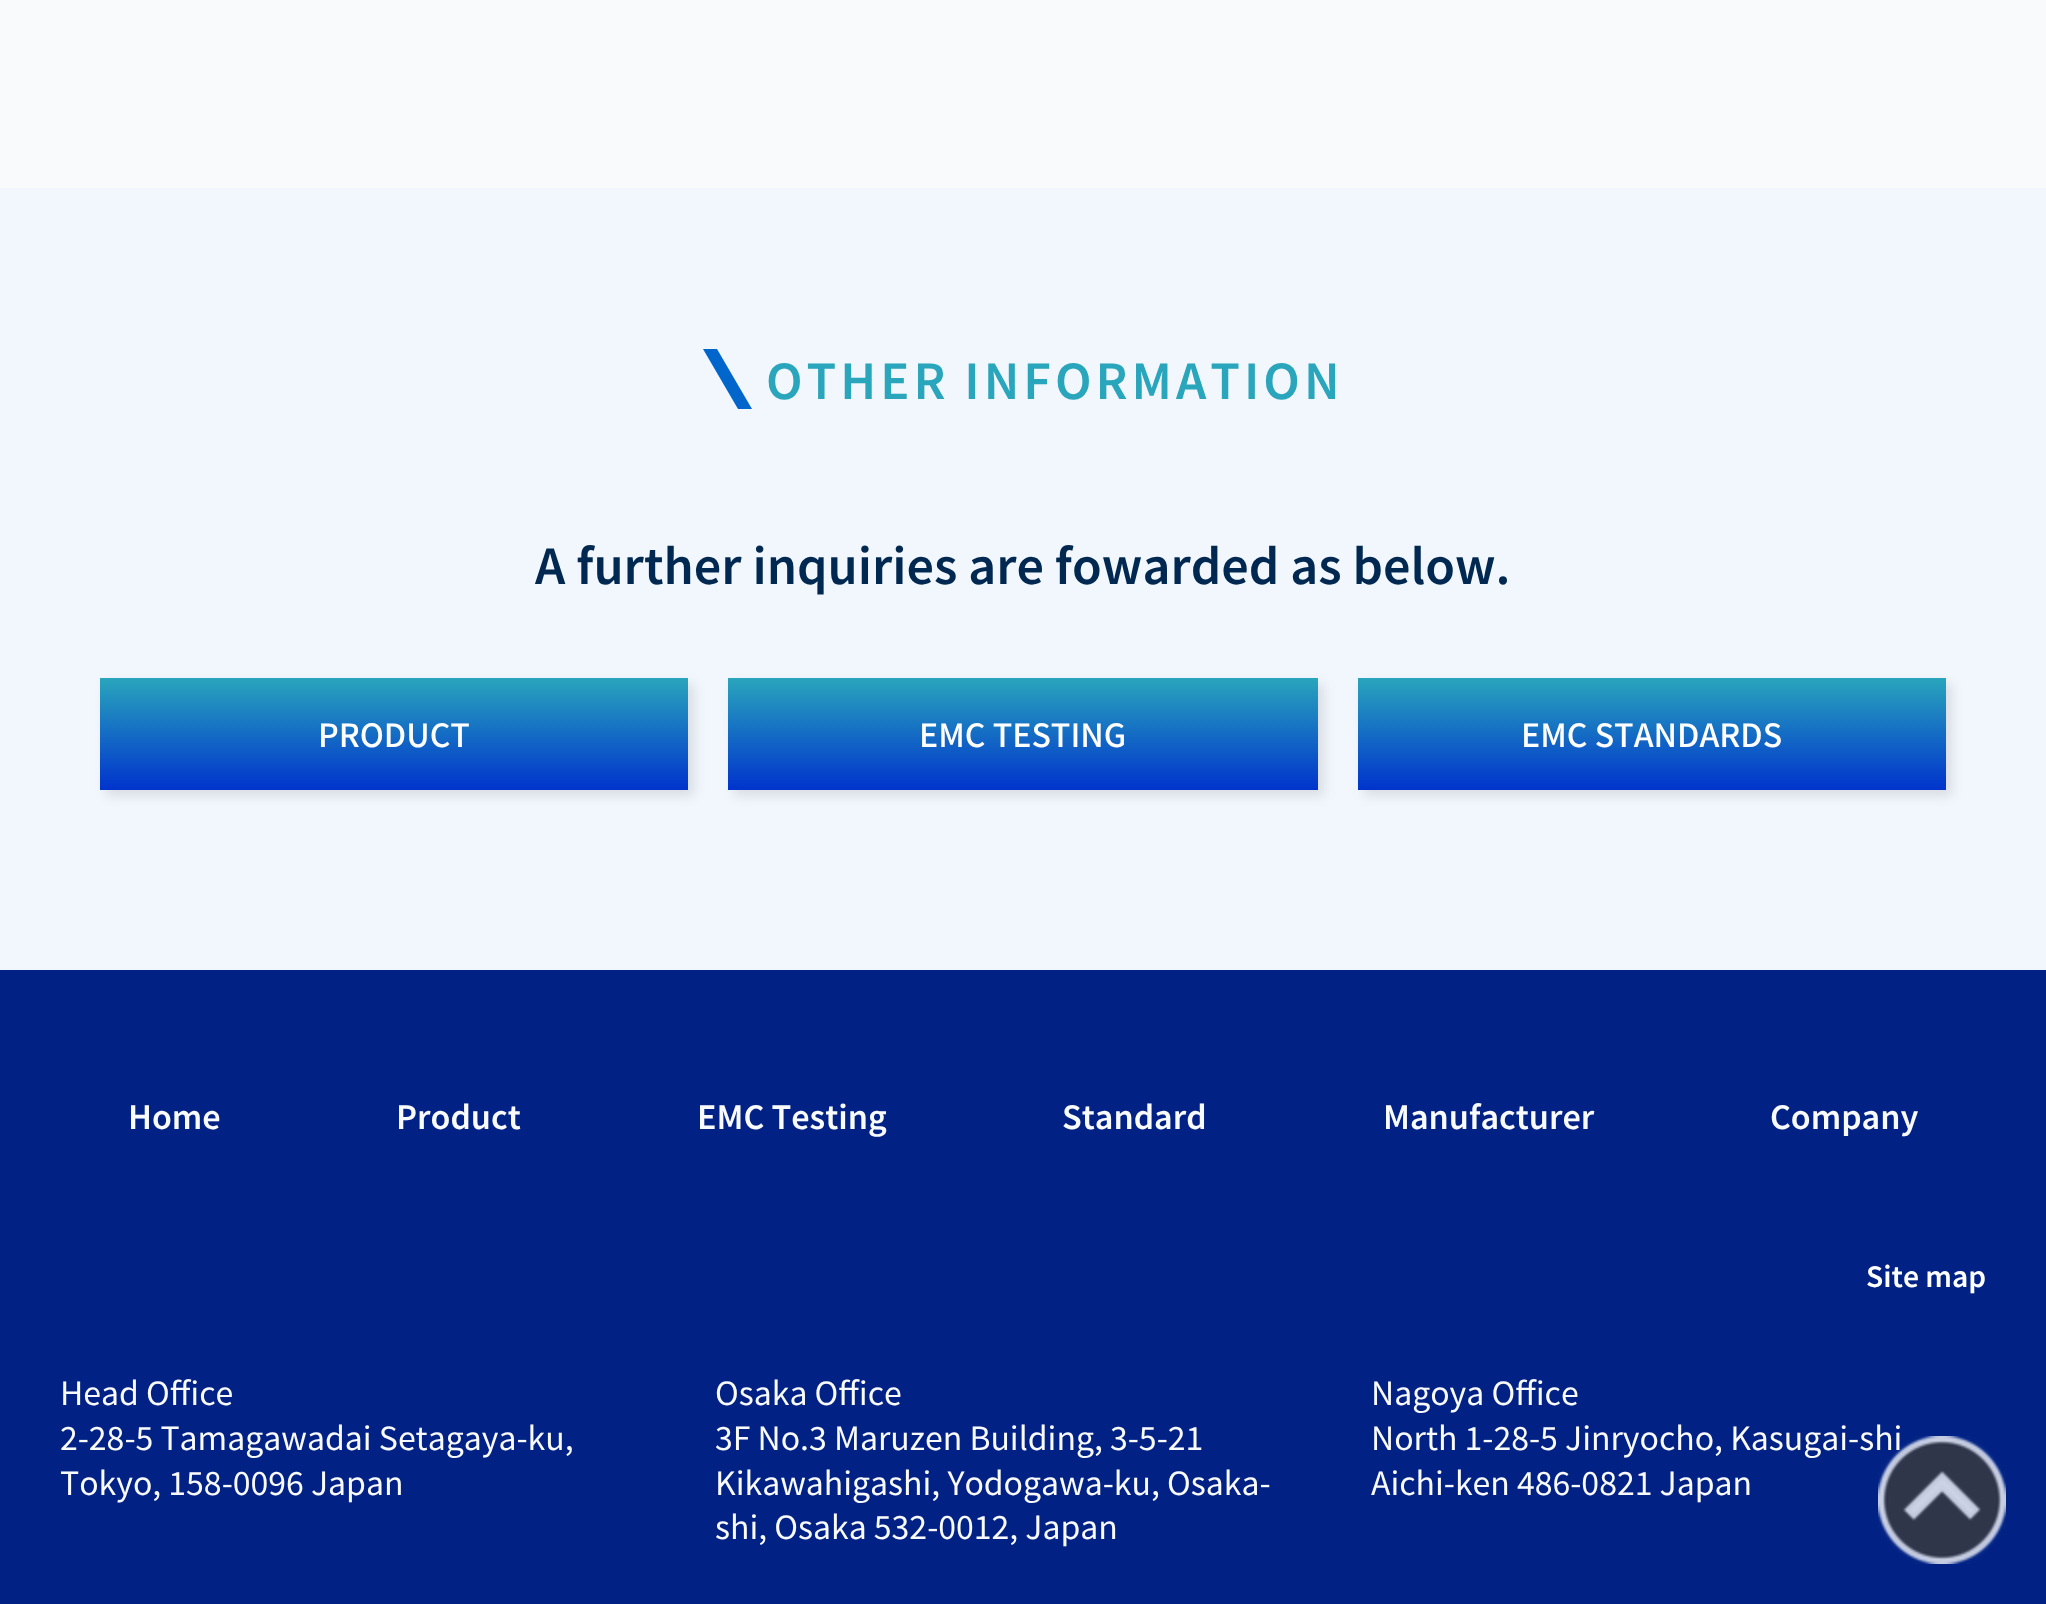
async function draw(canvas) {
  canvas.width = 2046;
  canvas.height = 1604;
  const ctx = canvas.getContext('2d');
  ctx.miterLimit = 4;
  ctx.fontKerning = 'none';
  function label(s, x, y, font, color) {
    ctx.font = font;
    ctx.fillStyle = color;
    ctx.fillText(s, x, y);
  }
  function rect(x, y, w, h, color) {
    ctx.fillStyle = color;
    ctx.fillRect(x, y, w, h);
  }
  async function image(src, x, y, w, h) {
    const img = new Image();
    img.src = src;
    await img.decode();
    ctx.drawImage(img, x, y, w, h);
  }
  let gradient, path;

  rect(0, 0, 2046, 1604, '#f9fafb');
  rect(0, 188, 2046, 782, '#f2f7fd');
  ctx.fillStyle = '#06c';
  path = new Path2D('M703 349H717L752 409H738Z');
  ctx.fill(path);
  ctx.letterSpacing = '4px';
  label('OTHER INFORMATION', 766, 399, '600 48px Noto Sans JP', '#29a5bc');
  ctx.letterSpacing = '0px';
  label('A further inquiries are fowarded as below.', 535, 584, '600 48px Noto Sans JP', '#002850');
  ctx.fillStyle = '#0000001a';
  ctx.filter = 'blur(6px)';
  ctx.beginPath();
  ctx.rect(106, 684, 588, 112);
  ctx.fill();
  ctx.filter = 'none';
  gradient = ctx.createLinearGradient(394, 790, 394, 678);
  gradient.addColorStop(0, '#03c');
  gradient.addColorStop(1, '#29a5bc');
  ctx.fillStyle = gradient;
  ctx.fillRect(100, 678, 588, 112);
  label('PRODUCT', 318, 747, '500 32px Noto Sans JP', '#fff');
  ctx.fillStyle = '#0000001a';
  ctx.filter = 'blur(6px)';
  ctx.beginPath();
  ctx.rect(734, 684, 590, 112);
  ctx.fill();
  ctx.filter = 'none';
  gradient = ctx.createLinearGradient(1023, 790, 1023, 678);
  gradient.addColorStop(0, '#03c');
  gradient.addColorStop(1, '#29a5bc');
  ctx.fillStyle = gradient;
  ctx.fillRect(728, 678, 590, 112);
  label('EMC TESTING', 919, 747, '500 32px Noto Sans JP', '#fff');
  ctx.fillStyle = '#0000001a';
  ctx.filter = 'blur(6px)';
  ctx.beginPath();
  ctx.rect(1364, 684, 588, 112);
  ctx.fill();
  ctx.filter = 'none';
  gradient = ctx.createLinearGradient(1652, 790, 1652, 678);
  gradient.addColorStop(0, '#03c');
  gradient.addColorStop(1, '#29a5bc');
  ctx.fillStyle = gradient;
  ctx.fillRect(1358, 678, 588, 112);
  label('EMC STANDARDS', 1521, 747, '500 32px Noto Sans JP', '#fff');
  rect(0, 970, 2046, 634, '#012284');
  label('Home', 128, 1129, '600 32px Noto Sans JP', '#f9fafb');
  label('Product', 396, 1129, '600 32px Noto Sans JP', '#f9fafb');
  label('EMC Testing', 697, 1129, '600 32px Noto Sans JP', '#f9fafb');
  label('Standard', 1062, 1129, '600 32px Noto Sans JP', '#f9fafb');
  label('Manufacturer', 1383, 1129, '600 32px Noto Sans JP', '#f9fafb');
  label('Company', 1770, 1129, '600 32px Noto Sans JP', '#f9fafb');
  label('Site map', 1866, 1287, '600 28px Noto Sans JP', '#fff');
  label('Head Office', 60, 1405, '32px Noto Sans JP', '#f9fafb');
  label('2-28-5 Tamagawadai Setagaya-ku,', 60, 1450, '32px Noto Sans JP', '#f9fafb');
  label('Tokyo, 158-0096 Japan', 60, 1495, '32px Noto Sans JP', '#f9fafb');
  label('Osaka Office', 715, 1405, '32px Noto Sans JP', '#f9fafb');
  label('3F No.3 Maruzen Building, 3-5-21', 715, 1450, '32px Noto Sans JP', '#f9fafb');
  label('Kikawahigashi, Yodogawa-ku, Osaka-', 715, 1495, '32px Noto Sans JP', '#f9fafb');
  label('shi, Osaka 532-0012, Japan', 715, 1539, '32px Noto Sans JP', '#f9fafb');
  label('Nagoya Office', 1371, 1405, '32px Noto Sans JP', '#f9fafb');
  label('North 1-28-5 Jinryocho, Kasugai-shi', 1371, 1450, '32px Noto Sans JP', '#f9fafb');
  label('Aichi-ken 486-0821 Japan', 1371, 1495, '32px Noto Sans JP', '#f9fafb');
  await image('assets/img1.png', 1878, 1436, 128, 128);
}

draw(document.querySelector('canvas'));
